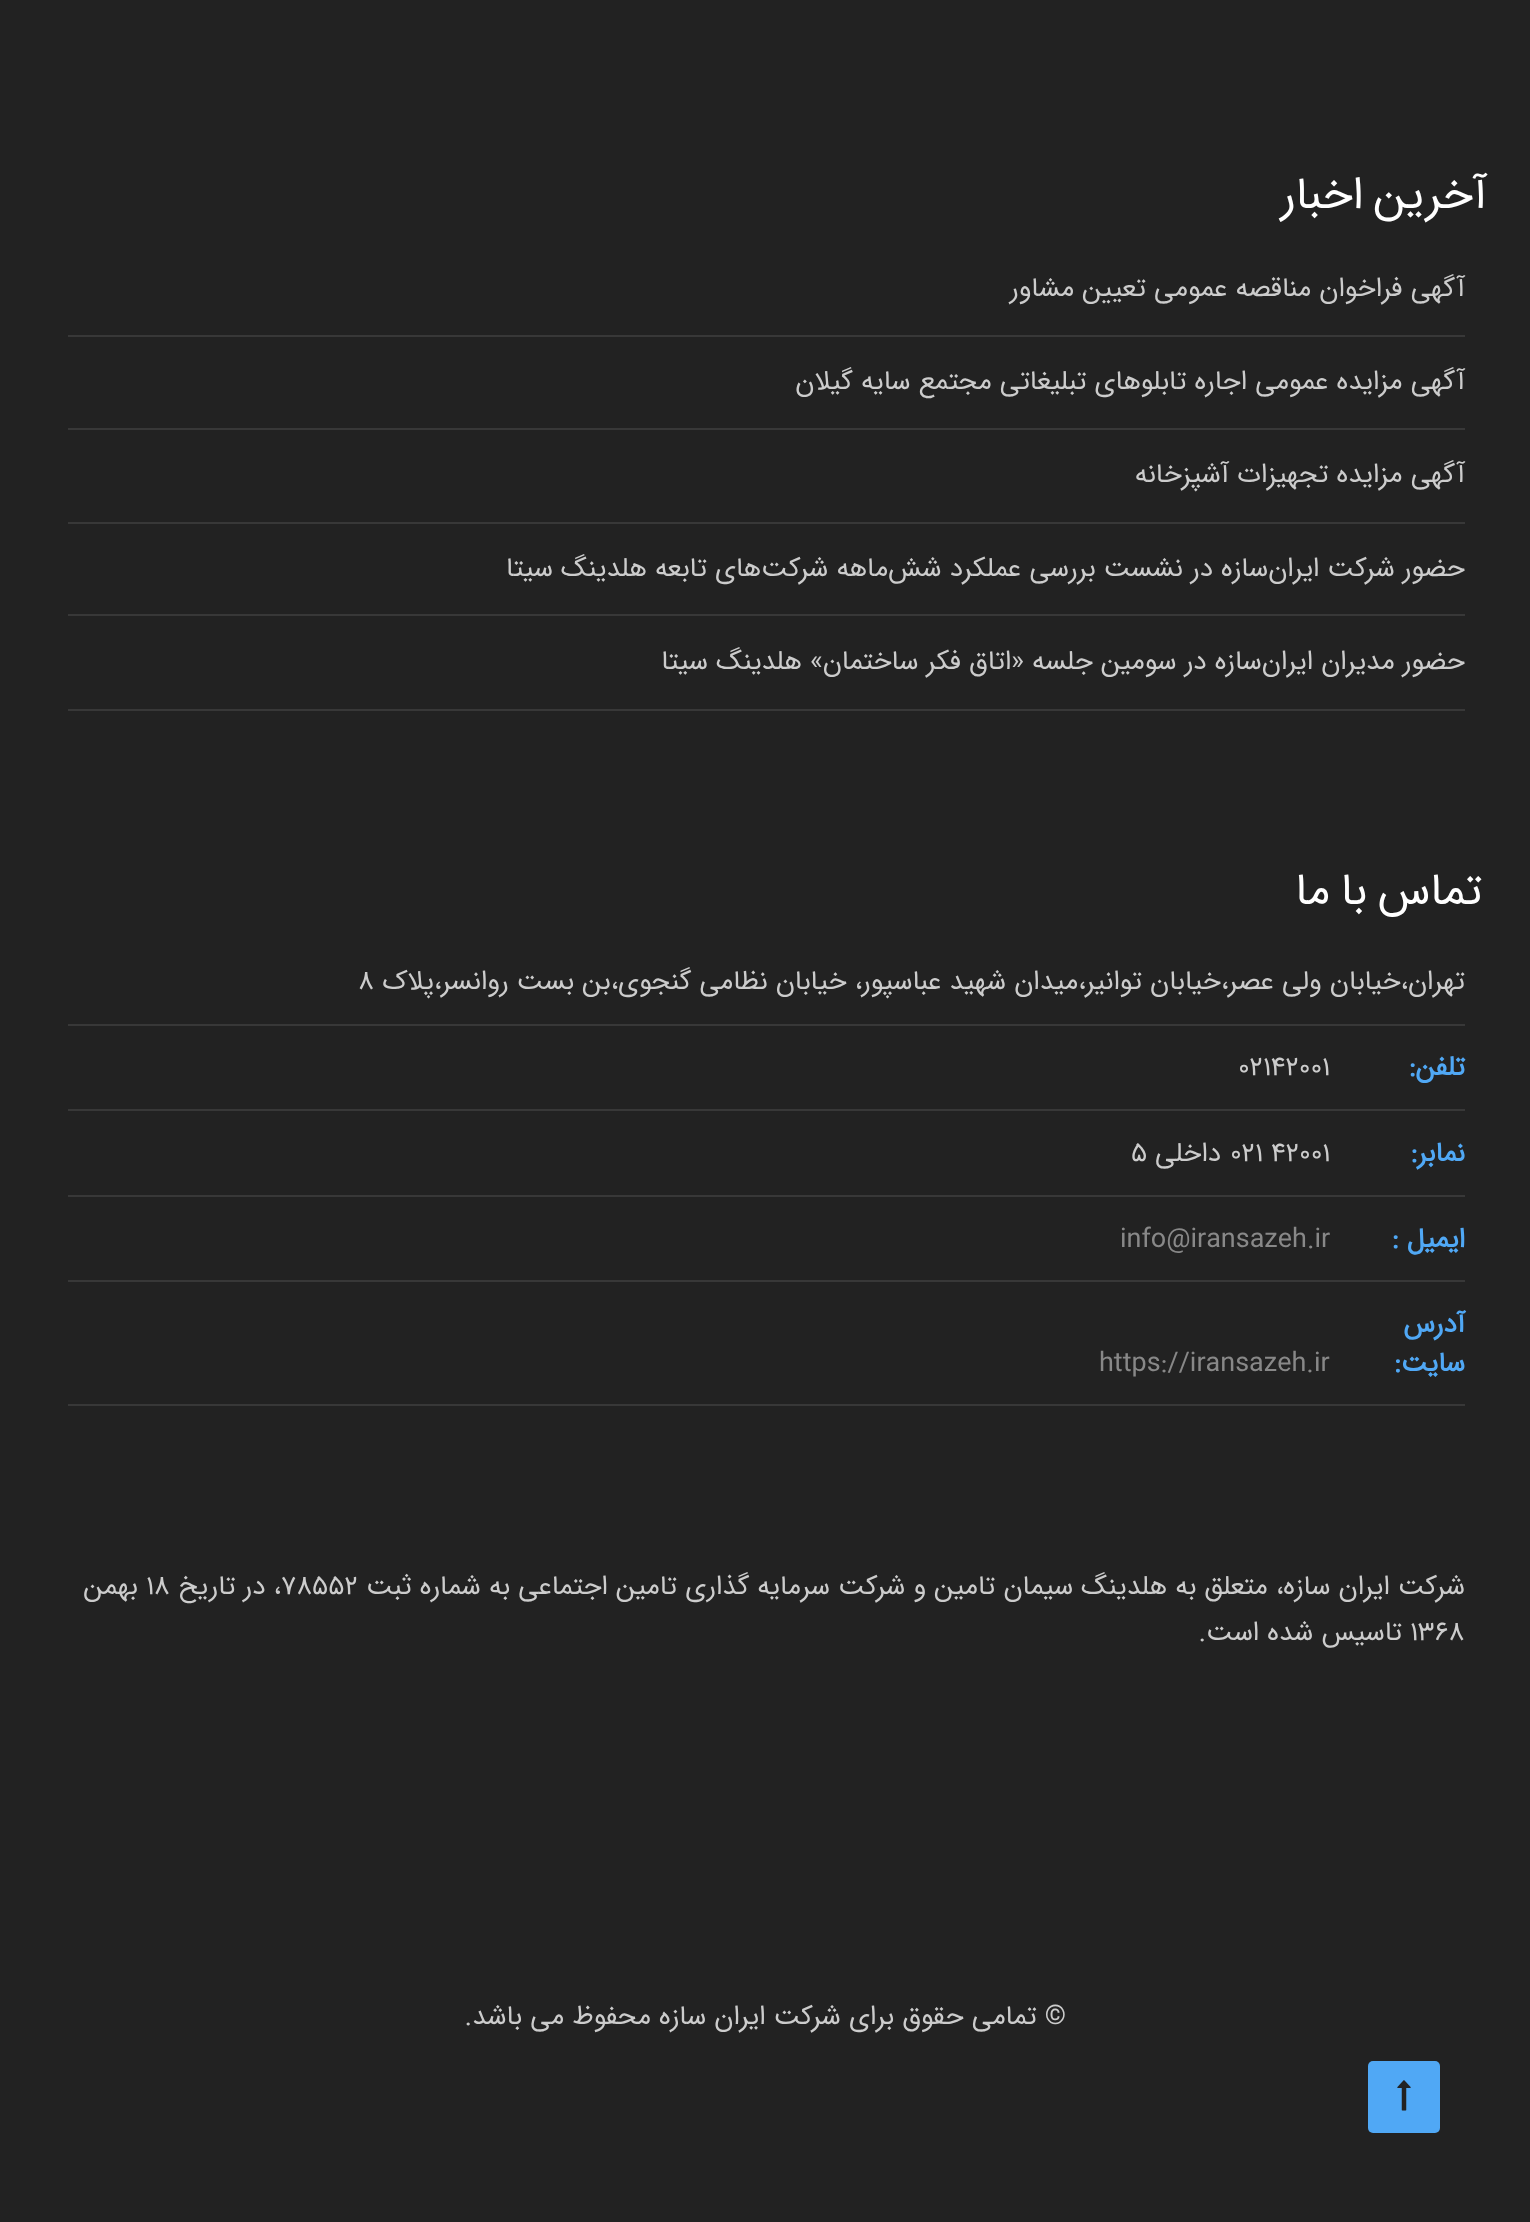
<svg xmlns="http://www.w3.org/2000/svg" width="1530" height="2222">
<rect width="100%" height="100%" fill="#222"/>
<text x="1487" y="208" word-spacing="-3" style="font-family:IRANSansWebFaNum;font-size:45px;letter-spacing:2.25px;direction:rtl;fill:#fff">آخرین اخبار</text>
<rect x="68" y="335" width="1397" height="2" fill="#383838"/>
<text x="1465" y="296" style="font-family:IRANSansWebFaNum;font-size:27px;direction:rtl;fill:#ccc">آگهی فراخوان مناقصه عمومی تعیین مشاور</text>
<rect x="68" y="428" width="1397" height="2" fill="#383838"/>
<text x="1465" y="389" style="font-family:IRANSansWebFaNum;font-size:27px;direction:rtl;fill:#ccc">آگهی مزایده عمومی اجاره تابلوهای تبلیغاتی مجتمع سایه گیلان</text>
<rect x="68" y="522" width="1397" height="2" fill="#383838"/>
<text x="1465" y="482" style="font-family:IRANSansWebFaNum;font-size:27px;direction:rtl;fill:#ccc">آگهی مزایده تجهیزات آشپزخانه</text>
<rect x="68" y="614" width="1397" height="2" fill="#383838"/>
<text x="1465" y="576" style="font-family:IRANSansWebFaNum;font-size:27px;direction:rtl;fill:#ccc">حضور شرکت ایران‌سازه در نشست بررسی عملکرد شش‌ماهه شرکت‌های تابعه هلدینگ سیتا</text>
<rect x="68" y="709" width="1397" height="2" fill="#383838"/>
<text x="1465" y="669" style="font-family:IRANSansWebFaNum;font-size:27px;direction:rtl;fill:#ccc">حضور مدیران ایران‌سازه در سومین جلسه «اتاق فکر ساختمان» هلدینگ سیتا</text>
<text x="1482" y="904" word-spacing="-3" style="font-family:IRANSansWebFaNum;font-size:45px;letter-spacing:2.25px;direction:rtl;fill:#fff">تماس با ما</text>
<rect x="68" y="1024" width="1397" height="2" fill="#383838"/>
<text x="1465" y="989" style="font-family:IRANSansWebFaNum;font-size:27px;direction:rtl;fill:#ccc">تهران،خیابان ولی عصر،خیابان توانیر،میدان شهید عباسپور، خیابان نظامی گنجوی،بن بست روانسر،پلاک</text>
<text x="358" y="989" style="font-family:IRANSansWebFaNum;font-size:27px;fill:#ccc">8</text>
<rect x="68" y="1109" width="1397" height="2" fill="#383838"/>
<text x="1465" y="1075" style="font-family:IRANSansWebFaNum;font-size:27px;font-weight:bold;direction:rtl;fill:#50a8f5">تلفن:</text>
<text x="1238" y="1075" style="font-family:IRANSansWebFaNum;font-size:27px;fill:#ccc">02142001</text>
<rect x="68" y="1195" width="1397" height="2" fill="#383838"/>
<text x="1465" y="1161" style="font-family:IRANSansWebFaNum;font-size:27px;font-weight:bold;direction:rtl;fill:#50a8f5">نمابر:</text>
<text x="1230" y="1161" style="font-family:IRANSansWebFaNum;font-size:27px;fill:#ccc">021 42001</text>
<text x="1221" y="1161" style="font-family:IRANSansWebFaNum;font-size:27px;direction:rtl;fill:#ccc">داخلی</text>
<text x="1131" y="1161" style="font-family:IRANSansWebFaNum;font-size:27px;fill:#ccc">5</text>
<rect x="68" y="1280" width="1397" height="2" fill="#383838"/>
<text x="1465" y="1247" style="font-family:IRANSansWebFaNum;font-size:27px;font-weight:bold;direction:rtl;fill:#50a8f5">ایمیل :</text>
<text x="1120" y="1247" style="font-family:IRANSansWebFaNum;font-size:27px;fill:#888">info@iransazeh.ir</text>
<rect x="68" y="1404" width="1397" height="2" fill="#383838"/>
<text x="1465" y="1332" style="font-family:IRANSansWebFaNum;font-size:27px;font-weight:bold;direction:rtl;fill:#50a8f5">آدرس</text>
<text x="1465" y="1371" style="font-family:IRANSansWebFaNum;font-size:27px;font-weight:bold;direction:rtl;fill:#50a8f5">سایت:</text>
<text x="1099" y="1371" style="font-family:IRANSansWebFaNum;font-size:27px;fill:#888">https://iransazeh.ir</text>
<text x="1465" y="1594" style="font-family:IRANSansWebFaNum;font-size:27px;direction:rtl;fill:#ccc">شرکت ایران سازه، متعلق به هلدینگ سیمان تامین و شرکت سرمایه گذاری تامین اجتماعی به شماره ثبت</text>
<text x="281" y="1594" style="font-family:IRANSansWebFaNum;font-size:27px;fill:#ccc">78552</text>
<text x="281" y="1594" style="font-family:IRANSansWebFaNum;font-size:27px;direction:rtl;fill:#ccc">، در تاریخ</text>
<text x="146" y="1594" style="font-family:IRANSansWebFaNum;font-size:27px;fill:#ccc">18</text>
<text x="138" y="1594" style="font-family:IRANSansWebFaNum;font-size:27px;direction:rtl;fill:#ccc">بهمن</text>
<text x="1410" y="1640" style="font-family:IRANSansWebFaNum;font-size:27px;fill:#ccc">1368</text>
<text x="1402" y="1640" style="font-family:IRANSansWebFaNum;font-size:27px;direction:rtl;fill:#ccc">تاسیس شده است.</text>
<text x="1066" y="2024" style="font-family:IRANSansWebFaNum;font-size:27px;direction:rtl;fill:#ccc">© تمامی حقوق برای شرکت ایران سازه محفوظ می باشد.</text>
<rect x="1368" y="2061" width="72" height="72" rx="5" fill="#50a8f5"/>
<image x="1397" y="2080" width="14" height="31" href="media/1.png"/>
</svg>
